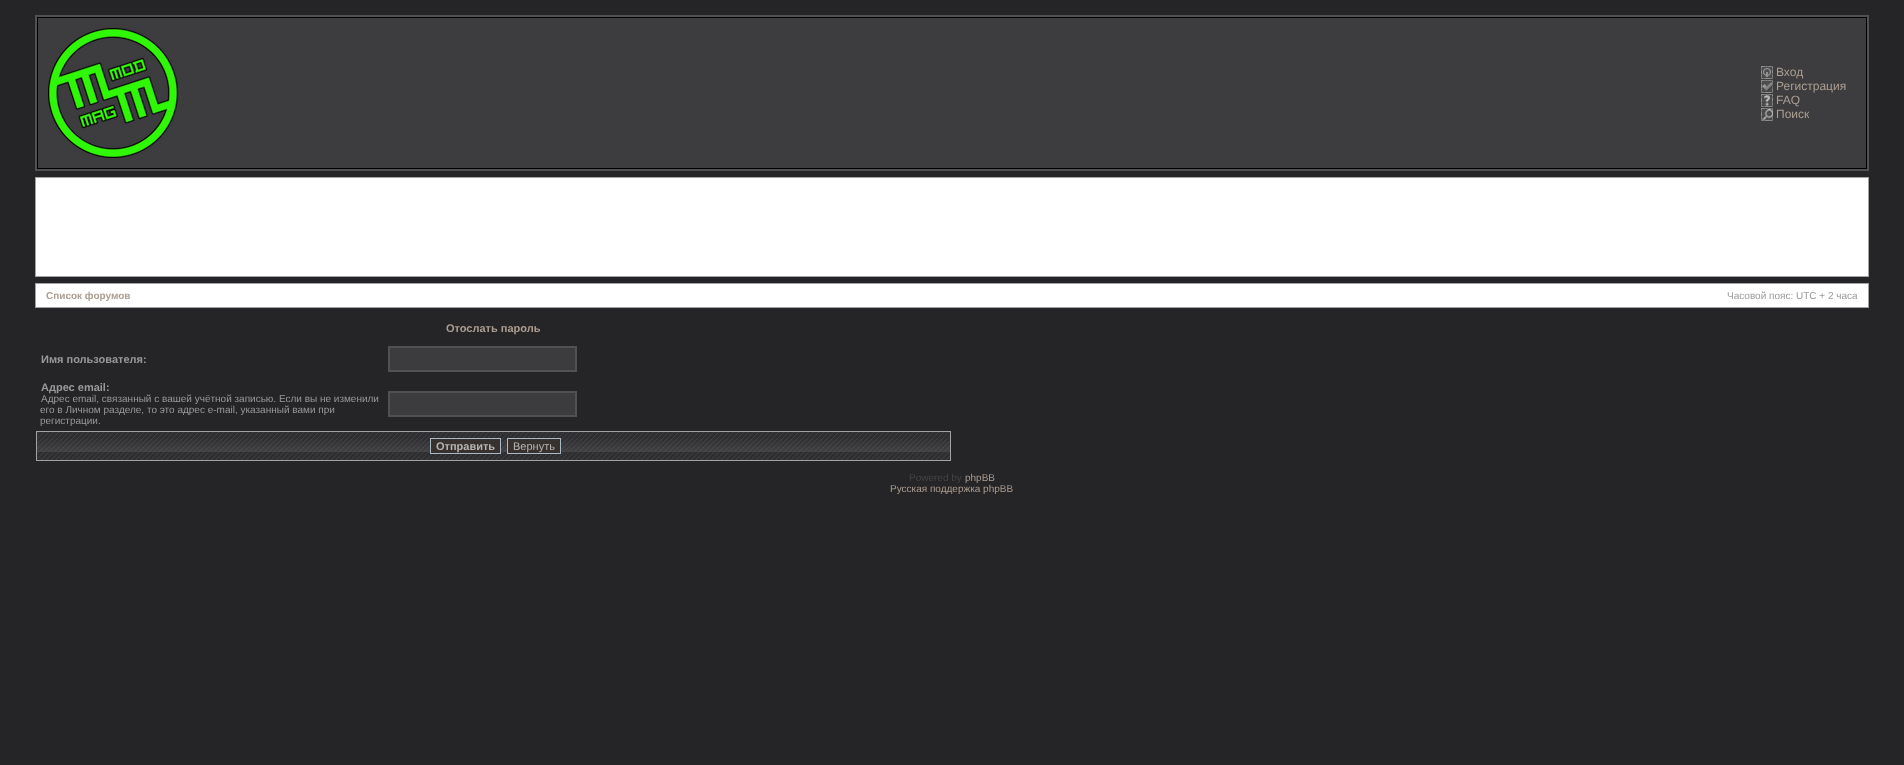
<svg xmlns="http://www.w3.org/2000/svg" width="1904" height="765">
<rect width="100%" height="100%" fill="#252427"/>
<rect x="36" y="16" width="1832" height="154" fill="none" stroke="#515053" stroke-width="2"/>
<rect x="37.5" y="17.5" width="1829" height="151" fill="none" stroke="#000"/>
<rect x="38" y="18" width="1828" height="150" fill="#3d3d3f"/>
<image x="48" y="28" width="130" height="130" href="media/1.png"/>
<image x="1761" y="66" width="12" height="13" href="media/2.png"/>
<text x="1776" y="76" style="font-family:Liberation Sans;font-size:12px;fill:#ac9e91">Вход</text>
<image x="1761" y="80" width="12" height="13" href="media/3.png"/>
<text x="1776" y="90" style="font-family:Liberation Sans;font-size:12px;fill:#ac9e91">Регистрация</text>
<image x="1761" y="94" width="12" height="13" href="media/4.png"/>
<text x="1776" y="104" style="font-family:Liberation Sans;font-size:12px;fill:#ac9e91">FAQ</text>
<image x="1761" y="108" width="12" height="13" href="media/5.png"/>
<text x="1776" y="118" style="font-family:Liberation Sans;font-size:12px;fill:#ac9e91">Поиск</text>
<rect x="35.5" y="177.5" width="1833" height="99" fill="#fff" stroke="#a2a2a2"/>
<rect x="35.5" y="283.5" width="1833" height="24" fill="#fff" stroke="#a2a2a2"/>
<text x="46" y="299" style="font-family:Liberation Sans;font-size:10px;font-weight:bold;fill:#ac9e91">Список форумов</text>
<text x="1727" y="299" style="font-family:Liberation Sans;font-size:10px;fill:#999">Часовой пояс: UTC + 2 часа</text>
<text x="446" y="332" style="font-family:Liberation Sans;font-size:11px;font-weight:bold;fill:#ac9e91">Отослать пароль</text>
<text x="41" y="363" style="font-family:Liberation Sans;font-size:11px;font-weight:bold;fill:#999">Имя пользователя:</text>
<rect x="389" y="347" width="187" height="24" fill="#3c3c3e" stroke="#515053" stroke-width="2"/>
<text x="41" y="391" style="font-family:Liberation Sans;font-size:11px;font-weight:bold;fill:#999">Адрес email:</text>
<text x="41" y="402" style="font-family:Liberation Sans;font-size:10px;fill:#999">Адрес email, связанный с вашей учётной записью. Если вы не изменили</text>
<text x="40" y="413" style="font-family:Liberation Sans;font-size:10px;fill:#999">его в Личном разделе, то это адрес e-mail, указанный вами при</text>
<text x="40" y="424" style="font-family:Liberation Sans;font-size:10px;fill:#999">регистрации.</text>
<rect x="389" y="392" width="187" height="24" fill="#3c3c3e" stroke="#515053" stroke-width="2"/>
<image x="37" y="432" width="913" height="28" href="media/6.png"/>
<rect x="36.5" y="431.5" width="914" height="29" fill="none" stroke="#a2a2a2"/>
<rect x="430.5" y="438.5" width="70" height="15" fill="#37322f" stroke="#a9b8c2"/>
<text x="436" y="450" style="font-family:Liberation Sans;font-size:11px;font-weight:bold;fill:#b6b5b1">Отправить</text>
<rect x="507.5" y="438.5" width="53" height="15" fill="#37322f" stroke="#a9b8c2"/>
<text x="513" y="450" style="font-family:Liberation Sans;font-size:11px;fill:#b6b5b1">Вернуть</text>
<text x="909" y="481" style="font-family:Liberation Sans;font-size:10px;fill:#444">Powered by</text>
<text x="965" y="481" style="font-family:Liberation Sans;font-size:10px;fill:#ac9e91">phpBB</text>
<text x="890" y="492" style="font-family:Liberation Sans;font-size:10px;fill:#ac9e91">Русская поддержка phpBB</text>
</svg>
